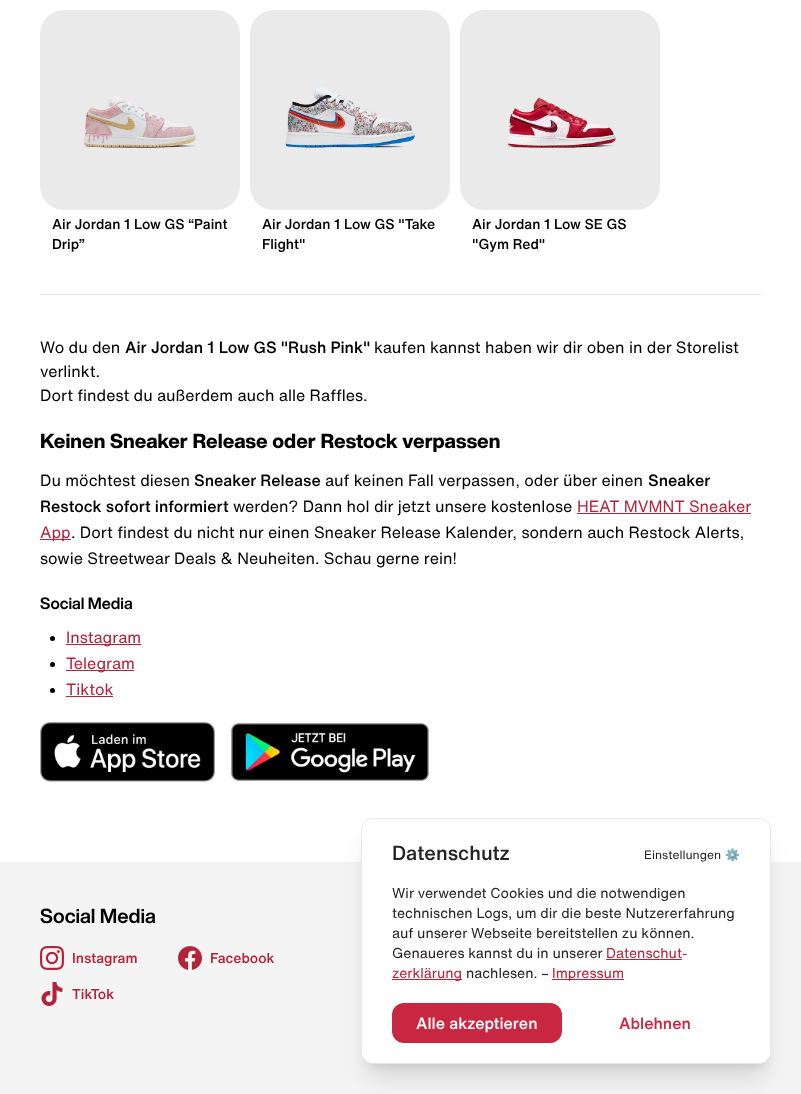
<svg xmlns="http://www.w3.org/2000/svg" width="801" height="1094">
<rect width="100%" height="100%" fill="#fff"/>
<rect x="40" y="10" width="200" height="200" rx="24" fill="#eaeaea"/>
<image x="83" y="96" width="113" height="52" href="media/1.png"/>
<text x="52" y="229" style="font-family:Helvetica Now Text;font-size:14px;font-weight:500;fill:#000">Air Jordan 1 Low GS “Paint</text>
<text x="52" y="249" style="font-family:Helvetica Now Text;font-size:14px;font-weight:500;fill:#000">Drip”</text>
<rect x="250" y="10" width="200" height="200" rx="24" fill="#eaeaea"/>
<image x="285" y="85" width="131" height="64" href="media/2.png"/>
<text x="262" y="229" style="font-family:Helvetica Now Text;font-size:14px;font-weight:500;fill:#000">Air Jordan 1 Low GS "Take</text>
<text x="262" y="249" style="font-family:Helvetica Now Text;font-size:14px;font-weight:500;fill:#000">Flight"</text>
<rect x="460" y="10" width="200" height="200" rx="24" fill="#eaeaea"/>
<image x="507" y="95" width="109" height="53" href="media/3.png"/>
<text x="472" y="229" style="font-family:Helvetica Now Text;font-size:14px;font-weight:500;fill:#000">Air Jordan 1 Low SE GS</text>
<text x="472" y="249" style="font-family:Helvetica Now Text;font-size:14px;font-weight:500;fill:#000">"Gym Red"</text>
<rect x="40" y="294" width="721" height="1" fill="#e5e7eb"/>
<text x="40" y="353" style="font-family:Helvetica Now Text;font-size:16px;fill:#000">Wo du den</text>
<text x="125" y="353" style="font-family:Helvetica Now Text;font-size:16px;font-weight:500;fill:#000">Air Jordan 1 Low GS "Rush Pink"</text>
<text x="374" y="353" style="font-family:Helvetica Now Text;font-size:16px;fill:#000">kaufen kannst haben wir dir oben in der Storelist</text>
<text x="40" y="377" style="font-family:Helvetica Now Text;font-size:16px;fill:#000">verlinkt.</text>
<text x="40" y="401" style="font-family:Helvetica Now Text;font-size:16px;fill:#000">Dort findest du außerdem auch alle Raffles.</text>
<text x="40" y="448" style="font-family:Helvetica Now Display;font-size:20px;font-weight:800;fill:#000">Keinen Sneaker Release oder Restock verpassen</text>
<text x="40" y="486" style="font-family:Helvetica Now Text;font-size:16px;fill:#000">Du möchtest diesen</text>
<text x="194" y="486" style="font-family:Helvetica Now Text;font-size:16px;font-weight:500;fill:#000">Sneaker Release</text>
<text x="325" y="486" style="font-family:Helvetica Now Text;font-size:16px;fill:#000">auf keinen Fall verpassen, oder über einen</text>
<text x="648" y="486" style="font-family:Helvetica Now Text;font-size:16px;font-weight:500;fill:#000">Sneaker</text>
<text x="40" y="512" style="font-family:Helvetica Now Text;font-size:16px;font-weight:500;fill:#000">Restock sofort informiert</text>
<text x="233" y="512" style="font-family:Helvetica Now Text;font-size:16px;fill:#000">werden? Dann hol dir jetzt unsere kostenlose</text>
<text x="577" y="512" style="font-family:Helvetica Now Text;font-size:16px;fill:#b3233a">HEAT MVMNT Sneaker</text>
<rect x="577" y="513" width="174" height="1" fill="#b3233a"/>
<rect x="40" y="539" width="31" height="1" fill="#b3233a"/>
<text x="40" y="538" style="font-family:Helvetica Now Text;font-size:16px;fill:#b3233a">App</text>
<text x="71" y="538" style="font-family:Helvetica Now Text;font-size:16px;fill:#000">. Dort findest du nicht nur einen Sneaker Release Kalender, sondern auch Restock Alerts,</text>
<text x="40" y="564" style="font-family:Helvetica Now Text;font-size:16px;fill:#000">sowie Streetwear Deals &amp; Neuheiten. Schau gerne rein!</text>
<text x="40" y="609" style="font-family:Helvetica Now Display;font-size:16px;font-weight:bold;fill:#000">Social Media</text>
<circle cx="52.5" cy="638.5" r="2.5" fill="#000"/>
<rect x="66" y="644" width="75" height="1" fill="#b3233a"/>
<text x="66" y="643" style="font-family:Helvetica Now Text;font-size:16px;fill:#b3233a">Instagram</text>
<circle cx="52.5" cy="664.5" r="2.5" fill="#000"/>
<rect x="66" y="670" width="68" height="1" fill="#b3233a"/>
<text x="66" y="669" style="font-family:Helvetica Now Text;font-size:16px;fill:#b3233a">Telegram</text>
<circle cx="52.5" cy="690.5" r="2.5" fill="#000"/>
<text x="66" y="695" style="font-family:Helvetica Now Text;font-size:16px;fill:#b3233a">Tiktok</text>
<rect x="66" y="696" width="47" height="1" fill="#b3233a"/>
<image x="40" y="722" width="175" height="60" href="media/4.png"/>
<image x="231" y="723" width="198" height="58" href="media/5.png"/>
<rect y="862" width="801" height="232" fill="#f4f4f5"/>
<text x="40" y="923" style="font-family:Helvetica Now Display;font-size:20px;font-weight:bold;fill:#000">Social Media</text>
<image x="40" y="946" width="24" height="24" href="media/6.png"/>
<text x="72" y="963" style="font-family:Helvetica Now Text;font-size:14px;font-weight:500;fill:#b3233a">Instagram</text>
<image x="41" y="982" width="22" height="24" href="media/7.png"/>
<text x="72" y="999" style="font-family:Helvetica Now Text;font-size:14px;font-weight:500;fill:#b3233a">TikTok</text>
<image x="178" y="946" width="24" height="24" href="media/8.png"/>
<text x="210" y="963" style="font-family:Helvetica Now Text;font-size:14px;font-weight:500;fill:#b3233a">Facebook</text>
<rect x="367" y="832" width="398" height="234" rx="6" fill="#0000001a" filter="blur(5px)"/>
<rect x="366" y="843" width="400" height="236" rx="7" fill="#0000001a" filter="blur(12.5px)"/>
<rect x="361.5" y="818.5" width="409" height="245" rx="11.5" fill="#fff" stroke="#e5e7e9"/>
<text x="392" y="860" style="font-family:Helvetica Now Text;font-size:20px;font-weight:500;fill:#272324">Datenschutz</text>
<text x="644" y="859" style="font-family:Helvetica Now Text;font-size:12px;fill:#272324">Einstellungen</text>
<text x="725" y="859" style="font-family:Noto Color Emoji;font-size:12px;fill:#272324">⚙️</text>
<text x="392" y="898" style="font-family:Helvetica Now Text;font-size:14px;fill:#272324">Wir verwendet Cookies und die notwendigen</text>
<text x="392" y="918" style="font-family:Helvetica Now Text;font-size:14px;fill:#272324">technischen Logs, um dir die beste Nutzererfahrung</text>
<text x="392" y="938" style="font-family:Helvetica Now Text;font-size:14px;fill:#272324">auf unserer Webseite bereitstellen zu können.</text>
<text x="392" y="958" style="font-family:Helvetica Now Text;font-size:14px;fill:#272324">Genaueres kannst du in unserer</text>
<text x="606" y="958" style="font-family:Helvetica Now Text;font-size:14px;fill:#b3233a">Datenschut-</text>
<rect x="606" y="959" width="76" height="1" fill="#b3233a"/>
<rect x="392" y="979" width="70" height="1" fill="#b3233a"/>
<text x="392" y="978" style="font-family:Helvetica Now Text;font-size:14px;fill:#b3233a">zerklärung</text>
<text x="466" y="978" style="font-family:Helvetica Now Text;font-size:14px;fill:#272324">nachlesen. –</text>
<rect x="552" y="979" width="72" height="1" fill="#b3233a"/>
<text x="552" y="978" style="font-family:Helvetica Now Text;font-size:14px;fill:#b3233a">Impressum</text>
<rect x="392" y="1003" width="170" height="40" rx="12" fill="#c72740"/>
<text x="416" y="1029" style="font-family:Helvetica Now Text;font-size:16px;font-weight:500;fill:#fff">Alle akzeptieren</text>
<text x="619" y="1029" style="font-family:Helvetica Now Text;font-size:16px;font-weight:500;fill:#c72740">Ablehnen</text>
</svg>
